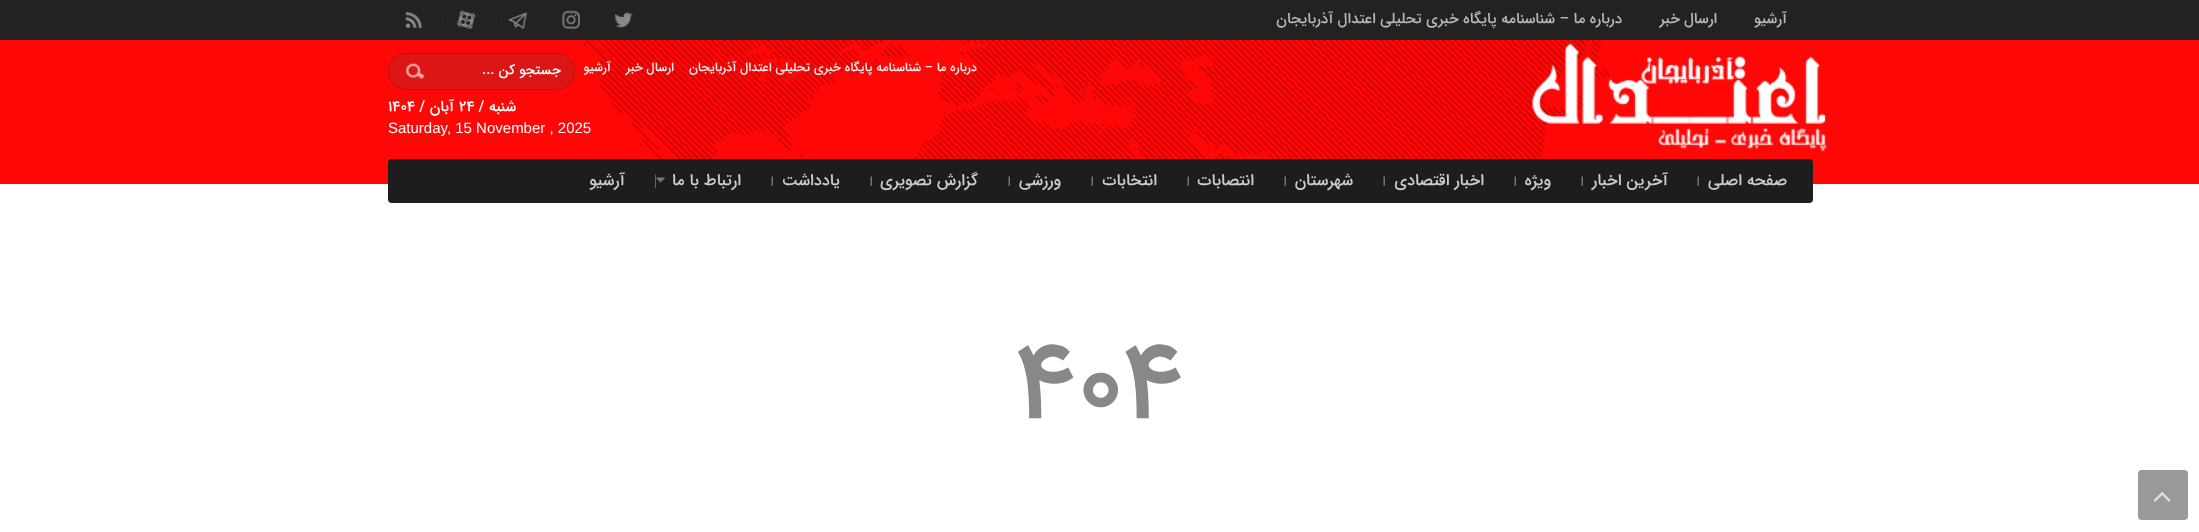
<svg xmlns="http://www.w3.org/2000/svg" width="2199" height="532">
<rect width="100%" height="100%" fill="#fff"/>
<rect width="2199" height="40" fill="#222"/>
<text x="1787" y="23" style="font-family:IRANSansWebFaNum;font-size:15px;font-weight:500;direction:rtl;fill:#b7b7b7">آرشیو</text>
<text x="1717" y="23" style="font-family:IRANSansWebFaNum;font-size:15px;font-weight:500;direction:rtl;fill:#b7b7b7">ارسال</text>
<text x="1680" y="23" style="font-family:IRANSansWebFaNum;font-size:15px;font-weight:500;direction:rtl;fill:#b7b7b7">خبر</text>
<text x="1622" y="23" style="font-family:IRANSansWebFaNum;font-size:15px;font-weight:500;direction:rtl;fill:#b7b7b7">درباره ما – شناسنامه پایگاه خبری تحلیلی اعتدال آذربایجان</text>
<image x="615" y="12" width="18" height="16" href="media/1.png"/>
<rect x="603" y="13" width="1" height="16" fill="#1f1f1f"/>
<image x="561" y="10" width="19" height="19" href="media/2.png"/>
<rect x="550" y="13" width="1" height="16" fill="#1f1f1f"/>
<image x="508" y="12" width="20" height="17" href="media/3.png"/>
<rect x="498" y="13" width="1" height="16" fill="#1f1f1f"/>
<image x="456" y="10" width="19" height="19" href="media/4.png"/>
<rect x="445" y="13" width="1" height="16" fill="#1f1f1f"/>
<image x="405" y="11" width="18" height="18" href="media/5.png"/>
<rect y="40" width="2199" height="144" fill="#ff0707"/>
<image x="582" y="40" width="1028" height="119" href="media/6.png"/>
<image x="1532" y="43" width="295" height="109" href="media/7.png"/>
<text x="977" y="71" style="font-family:IRANSansWebFaNum;font-size:12.5px;font-weight:500;direction:rtl;fill:#eee">درباره ما – شناسنامه پایگاه خبری تحلیلی اعتدال آذربایجان</text>
<text x="674" y="71" style="font-family:IRANSansWebFaNum;font-size:12.5px;font-weight:500;direction:rtl;fill:#eee">ارسال</text>
<text x="643" y="71" style="font-family:IRANSansWebFaNum;font-size:12.5px;font-weight:500;direction:rtl;fill:#eee">خبر</text>
<text x="611" y="71" style="font-family:IRANSansWebFaNum;font-size:12.5px;font-weight:500;direction:rtl;fill:#eee">آرشیو</text>
<rect x="388" y="53" width="187" height="37" rx="18.5" fill="#dc1515"/>
<image x="406" y="63" width="19" height="16" href="media/8.png"/>
<rect x="388.5" y="53.5" width="186" height="36" rx="18" fill="none" stroke="#241b1b33"/>
<text x="561" y="74" style="font-family:IRANSansWebFaNum;font-size:13.75px;font-weight:500;direction:rtl;fill:#fff">جستجو کن ...</text>
<text x="516" y="111" style="font-family:IRANSansWebFaNum;font-size:15px;font-weight:500;direction:rtl;fill:#fff">شنبه /</text>
<text x="459" y="111" style="font-family:IRANSansWebFaNum;font-size:15px;font-weight:500;fill:#fff">۲۴</text>
<text x="454" y="111" style="font-family:IRANSansWebFaNum;font-size:15px;font-weight:500;direction:rtl;fill:#fff">آبان /</text>
<text x="388" y="111" style="font-family:IRANSansWebFaNum;font-size:15px;font-weight:500;fill:#fff">۱۴۰۴</text>
<text x="388" y="133" style="font-family:Liberation Sans;font-size:15px;fill:#fff">Saturday, 15 November , 2025</text>
<rect x="388" y="159" width="1425" height="44" rx="4" fill="#1d1d1d"/>
<text x="1787" y="185" style="font-family:IRANSansWebFaNum;font-size:16.25px;font-weight:500;direction:rtl;fill:#ccc">صفحه اصلی</text>
<text x="1695" y="185" style="font-family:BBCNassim;font-size:15px;font-weight:bold;fill:#777">|</text>
<text x="1668" y="185" style="font-family:IRANSansWebFaNum;font-size:16.25px;font-weight:500;direction:rtl;fill:#ccc">آخرین اخبار</text>
<text x="1579" y="185" style="font-family:BBCNassim;font-size:15px;font-weight:bold;fill:#777">|</text>
<text x="1551" y="185" style="font-family:IRANSansWebFaNum;font-size:16.25px;font-weight:500;direction:rtl;fill:#ccc">ویژه</text>
<text x="1512" y="185" style="font-family:BBCNassim;font-size:15px;font-weight:bold;fill:#777">|</text>
<text x="1484" y="185" style="font-family:IRANSansWebFaNum;font-size:16.25px;font-weight:500;direction:rtl;fill:#ccc">اخبار اقتصادی</text>
<text x="1381" y="185" style="font-family:BBCNassim;font-size:15px;font-weight:bold;fill:#777">|</text>
<text x="1353" y="185" style="font-family:IRANSansWebFaNum;font-size:16.25px;font-weight:500;direction:rtl;fill:#ccc">شهرستان</text>
<text x="1282" y="185" style="font-family:BBCNassim;font-size:15px;font-weight:bold;fill:#777">|</text>
<text x="1254" y="185" style="font-family:IRANSansWebFaNum;font-size:16.25px;font-weight:500;direction:rtl;fill:#ccc">انتصابات</text>
<text x="1185" y="185" style="font-family:BBCNassim;font-size:15px;font-weight:bold;fill:#777">|</text>
<text x="1157" y="185" style="font-family:IRANSansWebFaNum;font-size:16.25px;font-weight:500;direction:rtl;fill:#ccc">انتخابات</text>
<text x="1089" y="185" style="font-family:BBCNassim;font-size:15px;font-weight:bold;fill:#777">|</text>
<text x="1061" y="185" style="font-family:IRANSansWebFaNum;font-size:16.25px;font-weight:500;direction:rtl;fill:#ccc">ورزشی</text>
<text x="1006" y="185" style="font-family:BBCNassim;font-size:15px;font-weight:bold;fill:#777">|</text>
<text x="978" y="185" style="font-family:IRANSansWebFaNum;font-size:16.25px;font-weight:500;direction:rtl;fill:#ccc">گزارش تصویری</text>
<text x="868" y="185" style="font-family:BBCNassim;font-size:15px;font-weight:bold;fill:#777">|</text>
<text x="840" y="185" style="font-family:IRANSansWebFaNum;font-size:16.25px;font-weight:500;direction:rtl;fill:#ccc">یادداشت</text>
<text x="769" y="185" style="font-family:BBCNassim;font-size:15px;font-weight:bold;fill:#777">|</text>
<text x="741" y="185" style="font-family:IRANSansWebFaNum;font-size:16.25px;font-weight:500;direction:rtl;fill:#ccc">ارتباط با ما</text>
<image x="656" y="177" width="9" height="6" href="media/9.png"/>
<text x="654" y="185" style="font-family:Liberation Serif;font-size:15px;fill:#777">|</text>
<text x="625" y="185" style="font-family:IRANSansWebFaNum;font-size:16.25px;font-weight:500;direction:rtl;fill:#ccc">آرشیو</text>
<text x="1016" y="416" style="font-family:IRANSansWebFaNum;font-size:110px;font-weight:500;fill:#888">404</text>
<rect x="2138" y="470" width="50" height="50" rx="4" fill="#999"/>
<image x="2153" y="492" width="18" height="10" href="media/10.png"/>
</svg>
